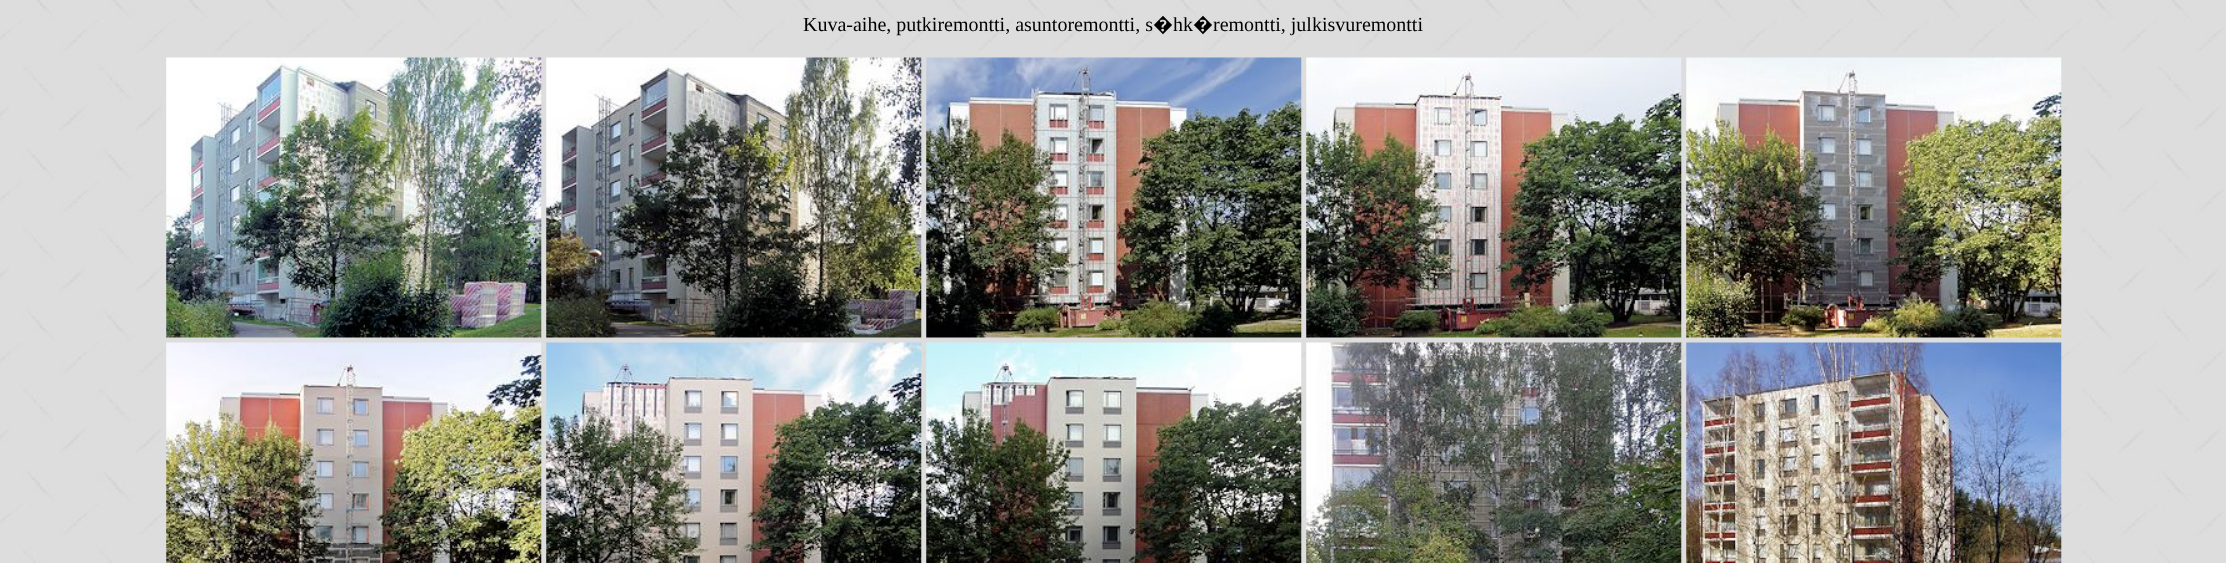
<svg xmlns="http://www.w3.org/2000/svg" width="2226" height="563">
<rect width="100%" height="100%" fill="#fff"/>
<image x="0" y="0" width="2226" height="563" href="media/1.png"/>
<text x="803" y="31" style="font-family:Liberation Serif;font-size:20px;fill:#000">Kuva-aihe, putkiremontti, asuntoremontti, s</text>
<text x="1153" y="31" style="font-family:Noto Sans;font-size:20px;fill:#000">�</text>
<text x="1173" y="31" style="font-family:Liberation Serif;font-size:20px;fill:#000">hk</text>
<text x="1193" y="31" style="font-family:Noto Sans;font-size:20px;fill:#000">�</text>
<text x="1213" y="31" style="font-family:Liberation Serif;font-size:20px;fill:#000">remontti, julkisvuremontti</text>
<image x="166" y="57" width="376" height="281" href="media/2.png"/>
<image x="546" y="57" width="376" height="281" href="media/3.png"/>
<image x="926" y="57" width="376" height="281" href="media/4.png"/>
<image x="1306" y="57" width="376" height="281" href="media/5.png"/>
<image x="1686" y="57" width="376" height="281" href="media/6.png"/>
<image x="166" y="342" width="376" height="221" href="media/7.png"/>
<image x="546" y="342" width="376" height="221" href="media/8.png"/>
<image x="926" y="342" width="376" height="221" href="media/9.png"/>
<image x="1306" y="342" width="376" height="221" href="media/10.png"/>
<image x="1686" y="342" width="376" height="221" href="media/11.png"/>
</svg>
